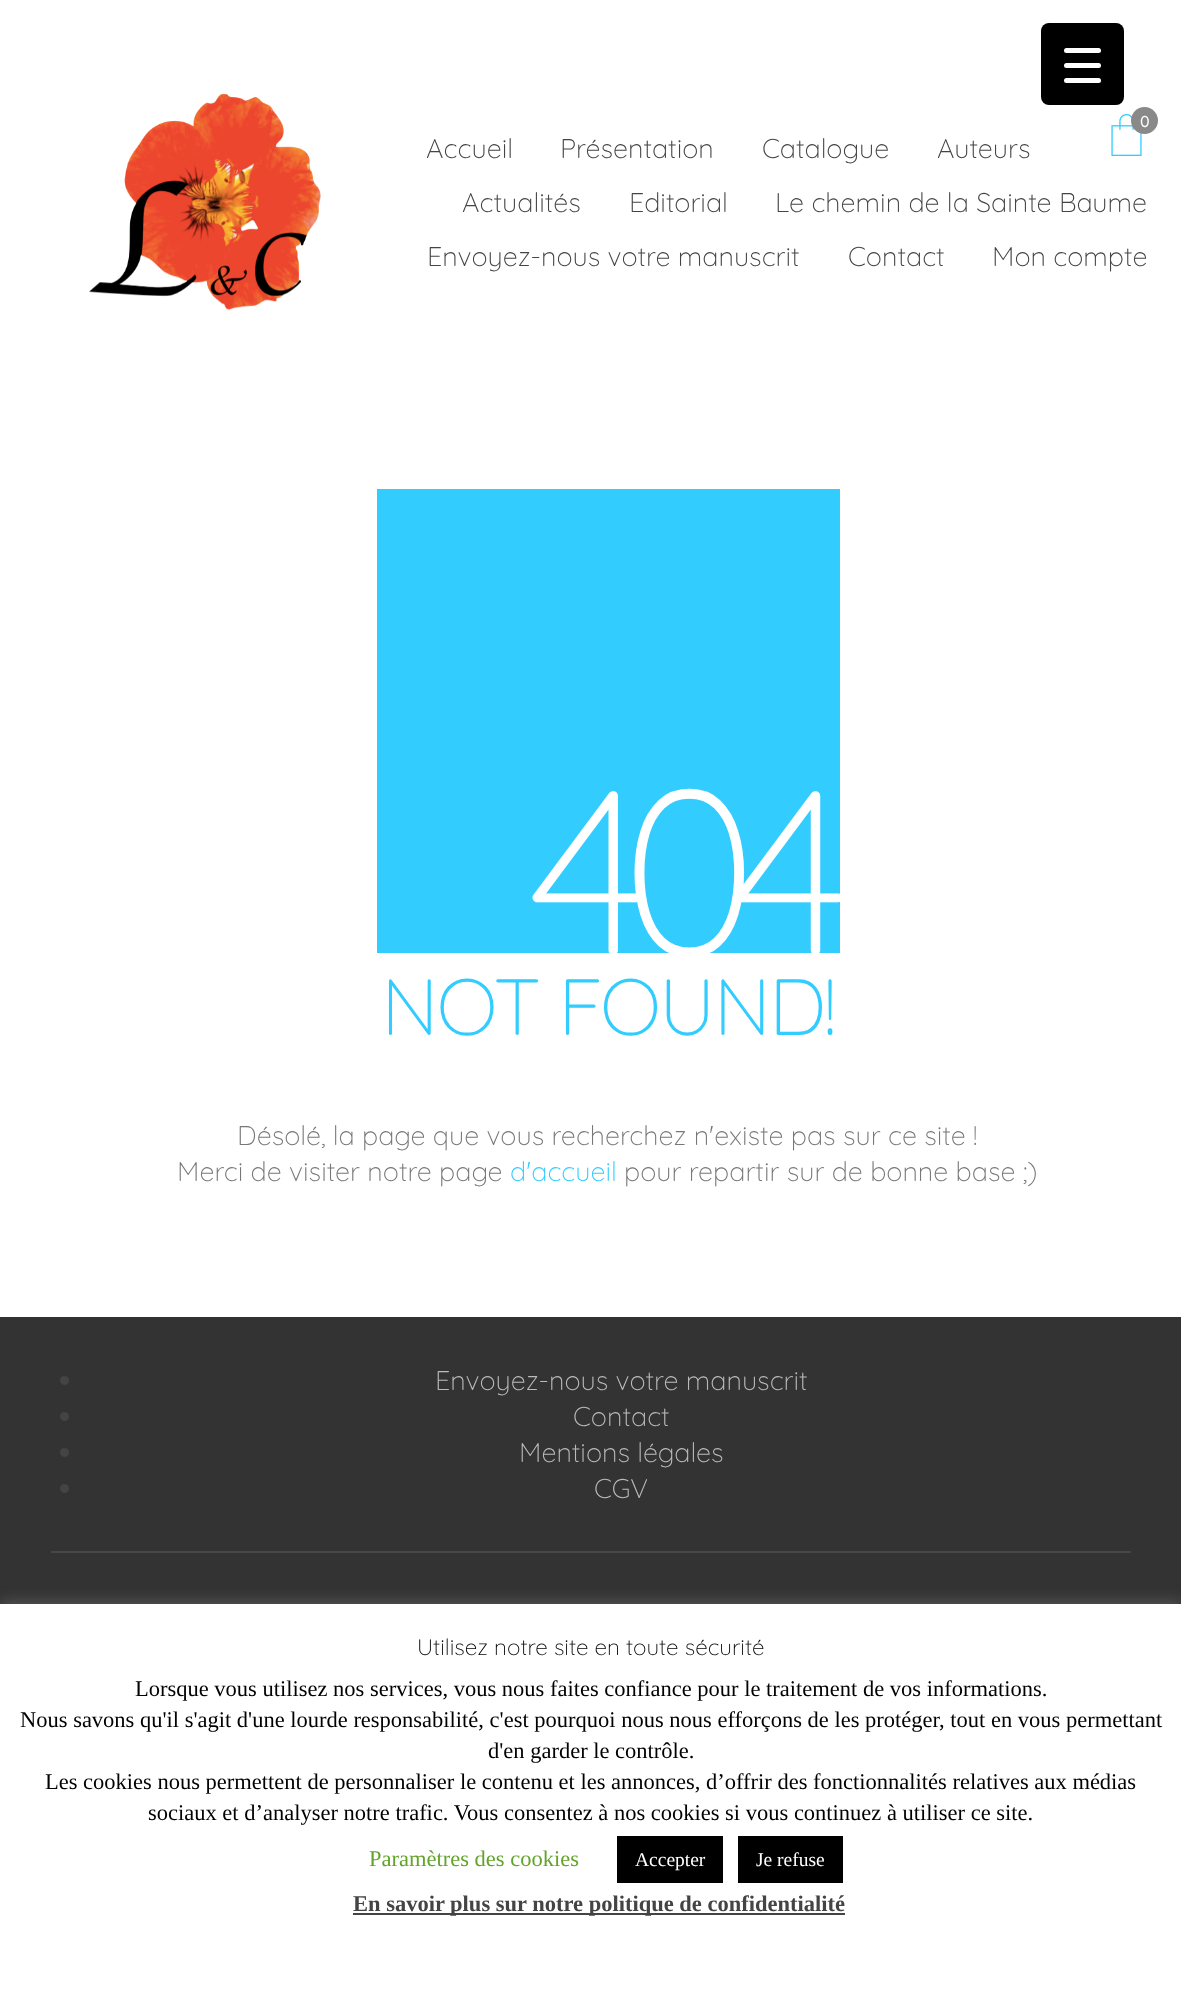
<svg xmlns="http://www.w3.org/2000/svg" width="1181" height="2013">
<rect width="100%" height="100%" fill="#fff"/>
<rect x="1041" y="23" width="83" height="82" rx="8" fill="#000"/>
<rect x="1064" y="63" width="37" height="5" rx="2.5" fill="#fff"/>
<rect x="1064" y="48" width="37" height="5" rx="2.5" fill="#fff"/>
<rect x="1064" y="78" width="37" height="5" rx="2.5" fill="#fff"/>
<image x="89" y="94" width="232" height="216" href="media/1.png"/>
<image x="1111" y="114" width="31" height="42" href="media/2.png"/>
<circle cx="1144.5" cy="120.5" r="13.5" fill="#898989"/>
<text x="1140" y="127" style="font-family:Quicksand;font-size:16px;font-weight:500;fill:#fff">0</text>
<text x="426" y="158" style="font-family:Quicksand;font-size:27px;font-weight:300;fill:#444">Accueil</text>
<text x="560" y="158" style="font-family:Quicksand;font-size:27px;font-weight:300;fill:#444">Présentation</text>
<text x="762" y="158" style="font-family:Quicksand;font-size:27px;font-weight:300;fill:#444">Catalogue</text>
<text x="937" y="158" style="font-family:Quicksand;font-size:27px;font-weight:300;fill:#444">Auteurs</text>
<text x="462" y="212" style="font-family:Quicksand;font-size:27px;font-weight:300;fill:#444">Actualités</text>
<text x="629" y="212" style="font-family:Quicksand;font-size:27px;font-weight:300;fill:#444">Editorial</text>
<text x="775" y="212" style="font-family:Quicksand;font-size:27px;font-weight:300;fill:#444">Le chemin de la Sainte Baume</text>
<text x="427" y="266" style="font-family:Quicksand;font-size:27px;font-weight:300;fill:#444">Envoyez-nous votre manuscrit</text>
<text x="848" y="266" style="font-family:Quicksand;font-size:27px;font-weight:300;fill:#444">Contact</text>
<text x="992" y="266" style="font-family:Quicksand;font-size:27px;font-weight:300;fill:#444">Mon compte</text>
<rect x="377" y="489" width="463" height="464" fill="#3cf"/>
<text x="529" y="955" style="font-family:Quicksand;font-size:234px;font-weight:300;letter-spacing:-45px;fill:#fff">4 0 4</text>
<text x="381" y="1035" style="font-family:Quicksand;font-size:79.5px;font-weight:300;letter-spacing:-2.25px;fill:#3cf">NOT FOUND!</text>
<text x="237" y="1145" style="font-family:Quicksand;font-size:27px;font-weight:300;fill:#777">Désolé, la page que vous recherchez n'existe pas sur ce site !</text>
<text x="177" y="1181" style="font-family:Quicksand;font-size:27px;font-weight:300;fill:#777">Merci de visiter notre page</text>
<text x="510" y="1181" style="font-family:Quicksand;font-size:27px;font-weight:300;fill:#3cf">d'accueil</text>
<text x="624" y="1181" style="font-family:Quicksand;font-size:27px;font-weight:300;fill:#777">pour repartir sur de bonne base ;)</text>
<rect y="1317" width="1181" height="287" fill="#333"/>
<circle cx="64.5" cy="1380.5" r="4.5" fill="#444"/>
<text x="435" y="1390" style="font-family:Quicksand;font-size:27px;font-weight:300;fill:#bbb">Envoyez-nous votre manuscrit</text>
<circle cx="64.5" cy="1416.5" r="4.5" fill="#444"/>
<text x="573" y="1426" style="font-family:Quicksand;font-size:27px;font-weight:300;fill:#bbb">Contact</text>
<circle cx="64.5" cy="1452.5" r="4.5" fill="#444"/>
<text x="519" y="1462" style="font-family:Quicksand;font-size:27px;font-weight:300;fill:#bbb">Mentions légales</text>
<circle cx="64.5" cy="1488.5" r="4.5" fill="#444"/>
<text x="594" y="1498" style="font-family:Quicksand;font-size:27px;font-weight:300;fill:#bbb">CGV</text>
<rect x="51" y="1551" width="1080" height="2" fill="#474747"/>
<rect y="1602" width="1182" height="410" fill="#acabab4d" filter="blur(7.5px)"/>
<rect y="1604" width="1181" height="409" fill="#fff"/>
<text x="417" y="1655" style="font-family:Quicksand;font-size:22.5px;font-weight:300;fill:#000">Utilisez notre site en toute sécurité</text>
<text x="135" y="1696" style="font-family:Liberation Serif;font-size:22.5px;fill:#000">Lorsque vous utilisez nos services, vous nous faites confiance pour le traitement de vos informations.</text>
<text x="20" y="1727" style="font-family:Liberation Serif;font-size:22.5px;fill:#000">Nous savons qu'il s'agit d'une lourde responsabilité, c'est pourquoi nous nous efforçons de les protéger, tout en vous permettant</text>
<text x="488" y="1758" style="font-family:Liberation Serif;font-size:22.5px;fill:#000">d'en garder le contrôle.</text>
<text x="45" y="1789" style="font-family:Liberation Serif;font-size:22.5px;fill:#000">Les cookies nous permettent de personnaliser le contenu et les annonces, d’offrir des fonctionnalités relatives aux médias</text>
<text x="148" y="1820" style="font-family:Liberation Serif;font-size:22.5px;fill:#000">sociaux et d’analyser notre trafic. Vous consentez à nos cookies si vous continuez à utiliser ce site.</text>
<text x="369" y="1866" style="font-family:Liberation Serif;font-size:22.5px;fill:#62a329">Paramètres des cookies</text>
<rect x="617" y="1836" width="106" height="47" fill="#000"/>
<text x="635" y="1866" style="font-family:Liberation Serif;font-size:19.5px;fill:#fff">Accepter</text>
<rect x="738" y="1836" width="105" height="47" fill="#000"/>
<text x="756" y="1866" style="font-family:Liberation Serif;font-size:19.5px;fill:#fff">Je refuse</text>
<rect x="353" y="1913" width="492" height="2" fill="#444"/>
<text x="353" y="1911" style="font-family:Liberation Serif;font-size:22.5px;font-weight:bold;fill:#444">En savoir plus sur notre politique de confidentialité</text>
</svg>
